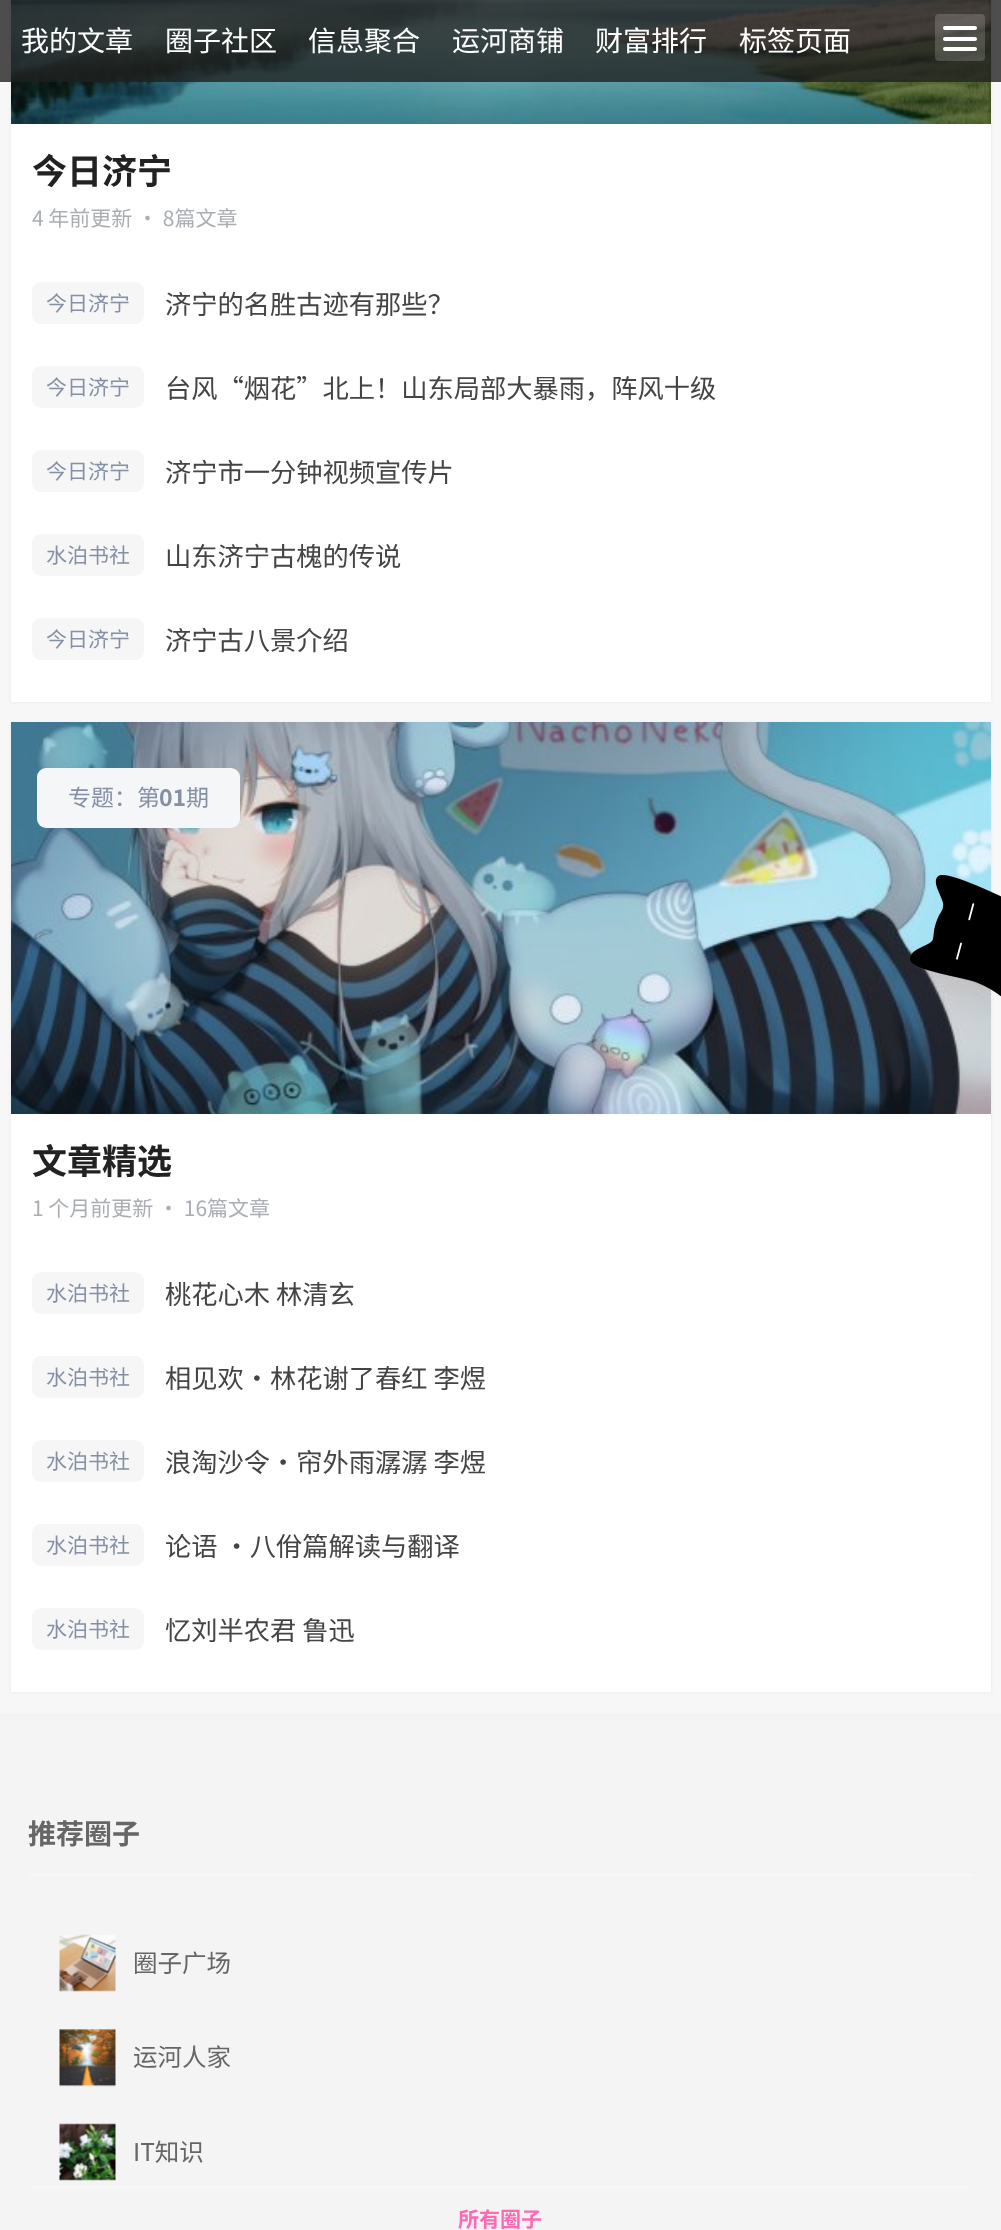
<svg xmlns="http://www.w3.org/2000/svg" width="1001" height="2230">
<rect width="100%" height="100%" fill="#f7f7f7"/>
<rect x="11" y="-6" width="980" height="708" fill="#627c991a" filter="blur(2px)"/>
<image x="11" y="0" width="980" height="124" href="media/1.png"/>
<rect width="1001" height="82" fill="#00000094"/>
<rect width="1001" height="82" fill="#33333366"/>
<rect width="1001" height="82" fill="#3333332b"/>
<text x="21" y="51" style="font-family:Noto Sans CJK SC;font-size:28px;fill:#fff">我的文章</text>
<text x="165" y="51" style="font-family:Noto Sans CJK SC;font-size:28px;fill:#fff">圈子社区</text>
<text x="308" y="51" style="font-family:Noto Sans CJK SC;font-size:28px;fill:#fff">信息聚合</text>
<text x="452" y="51" style="font-family:Noto Sans CJK SC;font-size:28px;fill:#fff">运河商铺</text>
<text x="595" y="51" style="font-family:Noto Sans CJK SC;font-size:28px;fill:#fff">财富排行</text>
<text x="739" y="51" style="font-family:Noto Sans CJK SC;font-size:28px;fill:#fff">标签页面</text>
<rect x="935" y="14" width="50" height="47" rx="4" fill="#f6f6f62e"/>
<rect x="943" y="26" width="34" height="4" rx="2" fill="#fff"/>
<rect x="943" y="37" width="34" height="4" rx="2" fill="#fff"/>
<rect x="943" y="47" width="34" height="4" rx="2" fill="#fff"/>
<rect x="11" y="124" width="980" height="578" fill="#fff"/>
<text x="32" y="184" style="font-family:Noto Sans CJK SC;font-size:35px;font-weight:bold;fill:#222">今日济宁</text>
<text x="32" y="226" style="font-family:Noto Sans CJK SC;font-size:21px;fill:#aaaeb3">4 年前更新 · 8篇文章</text>
<rect x="32" y="282" width="112" height="42" rx="9" fill="#f6f6f6"/>
<text x="46" y="311" style="font-family:Noto Sans CJK SC;font-size:21px;fill:#8590a6">今日济宁</text>
<text x="165" y="314" style="font-family:Noto Sans CJK SC;font-size:26.25px;fill:#444">济宁的名胜古迹有那些？</text>
<rect x="32" y="366" width="112" height="42" rx="9" fill="#f6f6f6"/>
<text x="46" y="395" style="font-family:Noto Sans CJK SC;font-size:21px;fill:#8590a6">今日济宁</text>
<text x="165" y="398" style="font-family:Noto Sans CJK SC;font-size:26.25px;fill:#444">台风“烟花”北上！山东局部大暴雨，阵风十级</text>
<rect x="32" y="450" width="112" height="42" rx="9" fill="#f6f6f6"/>
<text x="46" y="479" style="font-family:Noto Sans CJK SC;font-size:21px;fill:#8590a6">今日济宁</text>
<text x="165" y="482" style="font-family:Noto Sans CJK SC;font-size:26.25px;fill:#444">济宁市一分钟视频宣传片</text>
<rect x="32" y="534" width="112" height="42" rx="9" fill="#f6f6f6"/>
<text x="46" y="563" style="font-family:Noto Sans CJK SC;font-size:21px;fill:#8590a6">水泊书社</text>
<text x="165" y="566" style="font-family:Noto Sans CJK SC;font-size:26.25px;fill:#444">山东济宁古槐的传说</text>
<rect x="32" y="618" width="112" height="42" rx="9" fill="#f6f6f6"/>
<text x="46" y="647" style="font-family:Noto Sans CJK SC;font-size:21px;fill:#8590a6">今日济宁</text>
<text x="165" y="650" style="font-family:Noto Sans CJK SC;font-size:26.25px;fill:#444">济宁古八景介绍</text>
<rect x="11" y="723" width="980" height="969" fill="#627c991a" filter="blur(2px)"/>
<rect x="11" y="1114" width="980" height="578" fill="#fff"/>
<image x="11" y="722" width="980" height="392" href="media/2.png"/>
<rect x="37" y="768" width="203" height="60" rx="9" fill="#f5f6f7"/>
<text x="68" y="806" style="font-family:Noto Sans CJK SC;font-size:23px;fill:#8590a6">专题：第</text>
<text x="159" y="806" style="font-family:Noto Sans CJK SC;font-size:23px;font-weight:bold;fill:#8590a6">01</text>
<text x="186" y="806" style="font-family:Noto Sans CJK SC;font-size:23px;fill:#8590a6">期</text>
<text x="32" y="1174" style="font-family:Noto Sans CJK SC;font-size:35px;font-weight:bold;fill:#222">文章精选</text>
<text x="32" y="1216" style="font-family:Noto Sans CJK SC;font-size:21px;fill:#aaaeb3">1 个月前更新 · 16篇文章</text>
<rect x="32" y="1272" width="112" height="42" rx="9" fill="#f6f6f6"/>
<text x="46" y="1301" style="font-family:Noto Sans CJK SC;font-size:21px;fill:#8590a6">水泊书社</text>
<text x="165" y="1304" style="font-family:Noto Sans CJK SC;font-size:26.25px;fill:#444">桃花心木 林清玄</text>
<rect x="32" y="1356" width="112" height="42" rx="9" fill="#f6f6f6"/>
<text x="46" y="1385" style="font-family:Noto Sans CJK SC;font-size:21px;fill:#8590a6">水泊书社</text>
<text x="165" y="1388" style="font-family:Noto Sans CJK SC;font-size:26.25px;fill:#444">相见欢·林花谢了春红 李煜</text>
<rect x="32" y="1440" width="112" height="42" rx="9" fill="#f6f6f6"/>
<text x="46" y="1469" style="font-family:Noto Sans CJK SC;font-size:21px;fill:#8590a6">水泊书社</text>
<text x="165" y="1472" style="font-family:Noto Sans CJK SC;font-size:26.25px;fill:#444">浪淘沙令·帘外雨潺潺 李煜</text>
<rect x="32" y="1524" width="112" height="42" rx="9" fill="#f6f6f6"/>
<text x="46" y="1553" style="font-family:Noto Sans CJK SC;font-size:21px;fill:#8590a6">水泊书社</text>
<text x="165" y="1556" style="font-family:Noto Sans CJK SC;font-size:26.25px;fill:#444">论语 ·八佾篇解读与翻译</text>
<rect x="32" y="1608" width="112" height="42" rx="9" fill="#f6f6f6"/>
<text x="46" y="1637" style="font-family:Noto Sans CJK SC;font-size:21px;fill:#8590a6">水泊书社</text>
<text x="165" y="1640" style="font-family:Noto Sans CJK SC;font-size:26.25px;fill:#444">忆刘半农君 鲁迅</text>
<image x="910" y="875" width="91" height="122" href="media/3.png"/>
<rect y="1713" width="1001" height="517" fill="#f4f4f4"/>
<rect x="28" y="1874" width="945" height="2" fill="#f7f7f7"/>
<text x="28" y="1844" style="font-family:Noto Sans CJK SC;font-size:28px;font-weight:bold;fill:#666">推荐圈子</text>
<image x="59" y="1934" width="57" height="58" href="media/4.png"/>
<text x="133" y="1972" style="font-family:Noto Sans CJK SC;font-size:24.5px;fill:#666">圈子广场</text>
<image x="59" y="2029" width="57" height="58" href="media/5.png"/>
<text x="133" y="2066" style="font-family:Noto Sans CJK SC;font-size:24.5px;fill:#666">运河人家</text>
<image x="59" y="2123" width="57" height="58" href="media/6.png"/>
<text x="133" y="2161" style="font-family:Noto Sans CJK SC;font-size:24.5px;fill:#666">IT知识</text>
<rect x="28" y="2186" width="945" height="2" fill="#f5f6f7"/>
<text x="458" y="2227" style="font-family:Noto Sans CJK SC;font-size:21px;font-weight:bold;fill:#ff69b4">所有圈子</text>
</svg>
